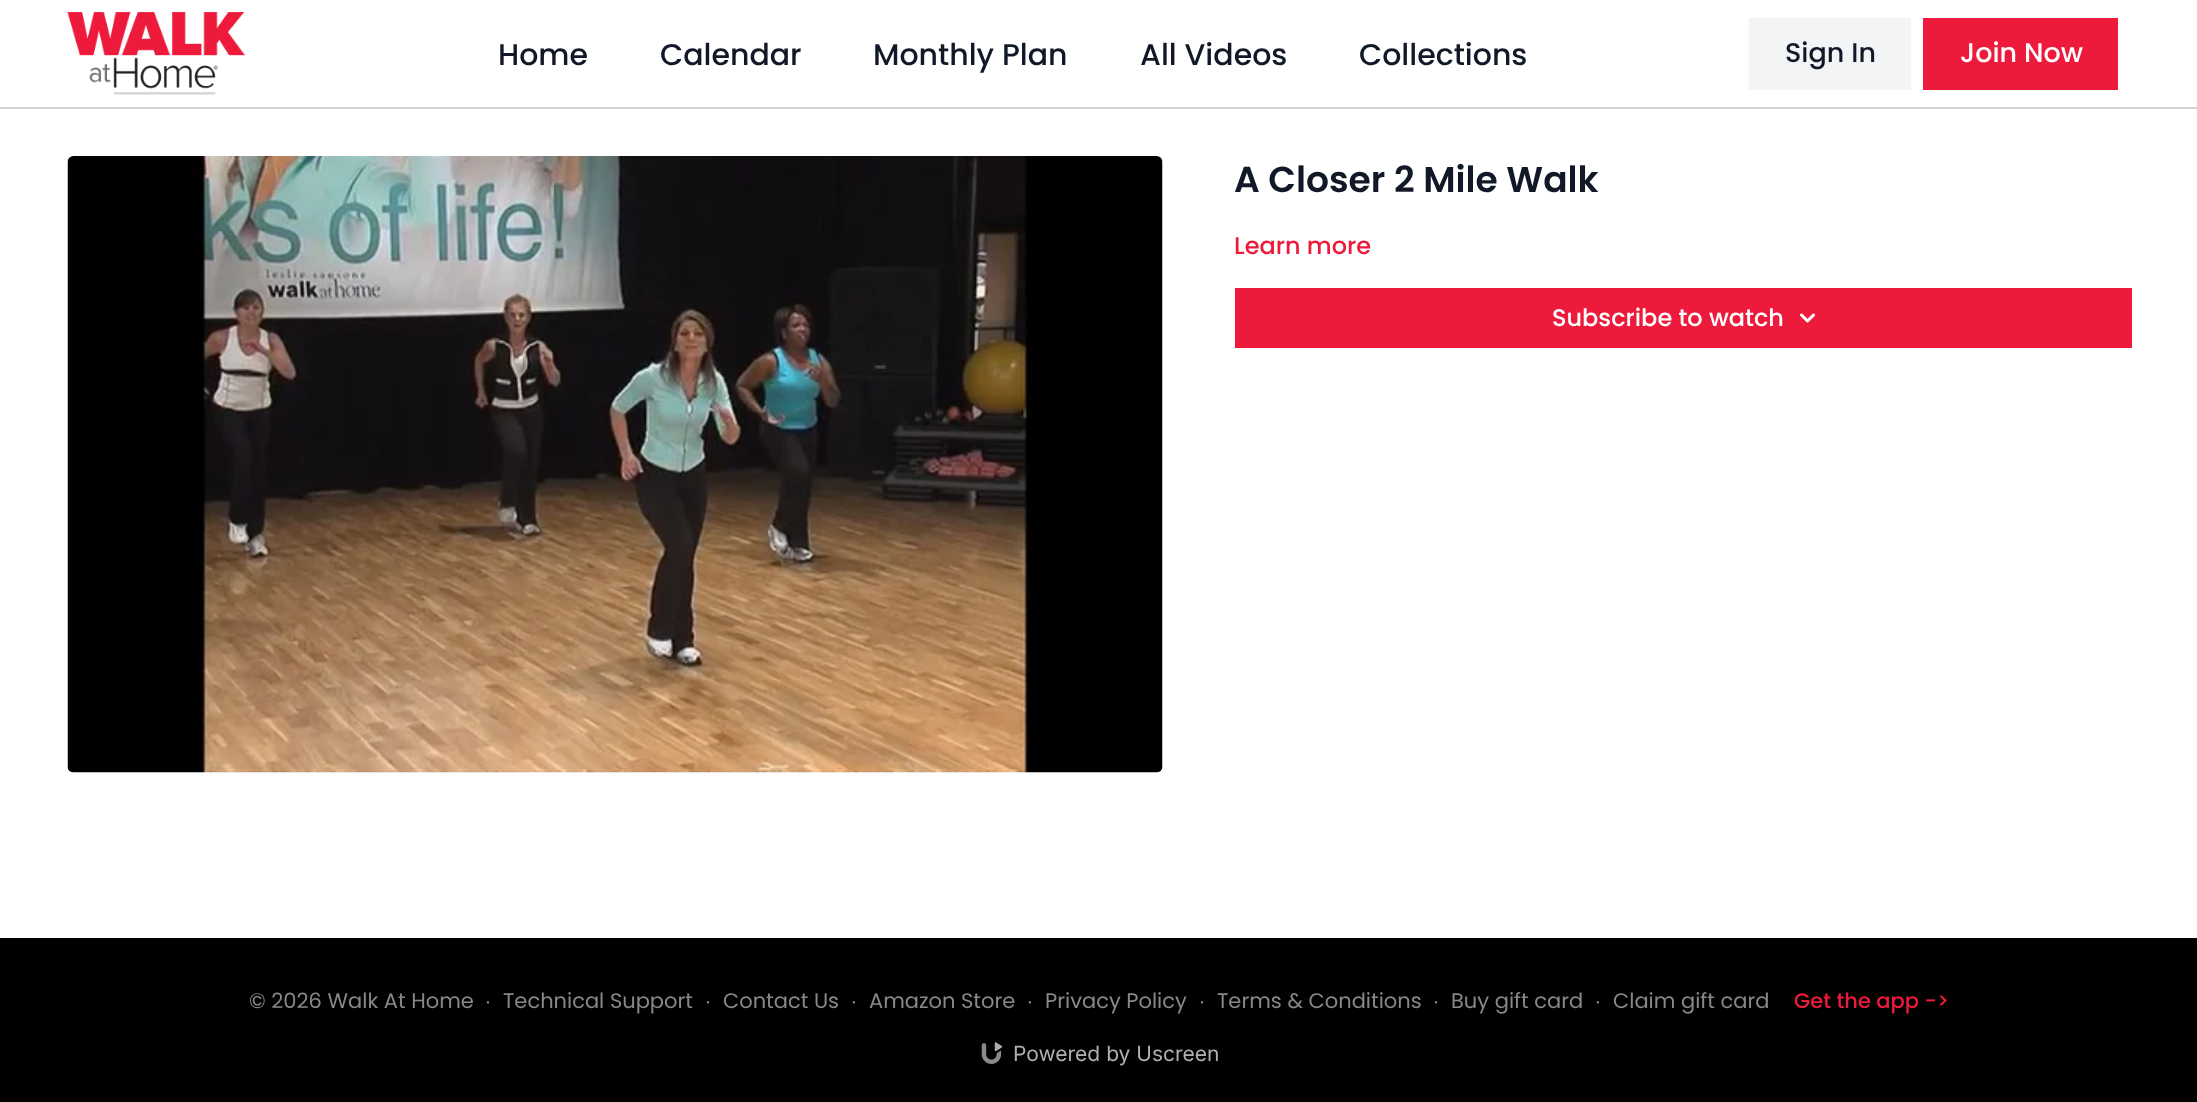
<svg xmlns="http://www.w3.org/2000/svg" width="2197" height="1102">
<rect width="100%" height="100%" fill="#fff"/>
<rect y="107" width="2197" height="2" fill="#d1d5db"/>
<image x="67" y="12" width="178" height="83" href="media/1.png"/>
<text x="498" y="65" style="font-family:Poppins;font-size:30px;font-weight:500;fill:#111827">Home</text>
<text x="660" y="65" style="font-family:Poppins;font-size:30px;font-weight:500;fill:#111827">Calendar</text>
<text x="873" y="65" style="font-family:Poppins;font-size:30px;font-weight:500;fill:#111827">Monthly Plan</text>
<text x="1140" y="65" style="font-family:Poppins;font-size:30px;font-weight:500;fill:#111827">All Videos</text>
<text x="1359" y="65" style="font-family:Poppins;font-size:30px;font-weight:500;fill:#111827">Collections</text>
<rect x="1749" y="18" width="162" height="72" fill="#f3f4f6"/>
<text x="1785" y="62" style="font-family:Poppins;font-size:27px;font-weight:500;fill:#111827">Sign In</text>
<rect x="1923" y="18" width="195" height="72" fill="#ed1a3b"/>
<text x="1960" y="62" style="font-family:Poppins;font-size:27px;font-weight:500;fill:#fff">Join Now</text>
<image x="67" y="156" width="1096" height="617" href="media/2.png"/>
<text x="1234" y="192" style="font-family:Poppins;font-size:36px;font-weight:600;fill:#111827">A Closer 2 Mile Walk</text>
<text x="1234" y="254" style="font-family:Poppins;font-size:24px;font-weight:500;fill:#ed1a3b">Learn more</text>
<rect x="1235" y="288" width="897" height="60" fill="#ed1a3b"/>
<text x="1552" y="326" style="font-family:Poppins;font-size:24px;font-weight:500;fill:#fff">Subscribe to watch</text>
<image x="1800" y="313" width="15" height="10" href="media/3.png"/>
<rect y="938" width="2197" height="164" fill="#000"/>
<text x="249" y="1008" style="font-family:Poppins;font-size:21px;fill:#888">© 2026 Walk At Home</text>
<text x="485" y="1008" style="font-family:Liberation Sans;font-size:21px;fill:#888">∙</text>
<text x="503" y="1008" style="font-family:Poppins;font-size:21px;fill:#888">Technical Support</text>
<text x="705" y="1008" style="font-family:Liberation Sans;font-size:21px;fill:#888">∙</text>
<text x="723" y="1008" style="font-family:Poppins;font-size:21px;fill:#888">Contact Us</text>
<text x="851" y="1008" style="font-family:Liberation Sans;font-size:21px;fill:#888">∙</text>
<text x="869" y="1008" style="font-family:Poppins;font-size:21px;fill:#888">Amazon Store</text>
<text x="1027" y="1008" style="font-family:Liberation Sans;font-size:21px;fill:#888">∙</text>
<text x="1045" y="1008" style="font-family:Poppins;font-size:21px;fill:#888">Privacy Policy</text>
<text x="1199" y="1008" style="font-family:Liberation Sans;font-size:21px;fill:#888">∙</text>
<text x="1217" y="1008" style="font-family:Poppins;font-size:21px;fill:#888">Terms &amp; Conditions</text>
<text x="1433" y="1008" style="font-family:Liberation Sans;font-size:21px;fill:#888">∙</text>
<text x="1451" y="1008" style="font-family:Poppins;font-size:21px;fill:#888">Buy gift card</text>
<text x="1595" y="1008" style="font-family:Liberation Sans;font-size:21px;fill:#888">∙</text>
<text x="1613" y="1008" style="font-family:Poppins;font-size:21px;fill:#888">Claim gift card</text>
<text x="1794" y="1008" style="font-family:Poppins;font-size:21px;font-weight:500;fill:#ed1a3b">Get the app -&gt;</text>
<image x="981" y="1042" width="22" height="22" href="media/4.png"/>
<text x="1013" y="1061" style="font-family:Inter;font-size:21px;fill:#b0b0b0">Powered by Uscreen</text>
</svg>
